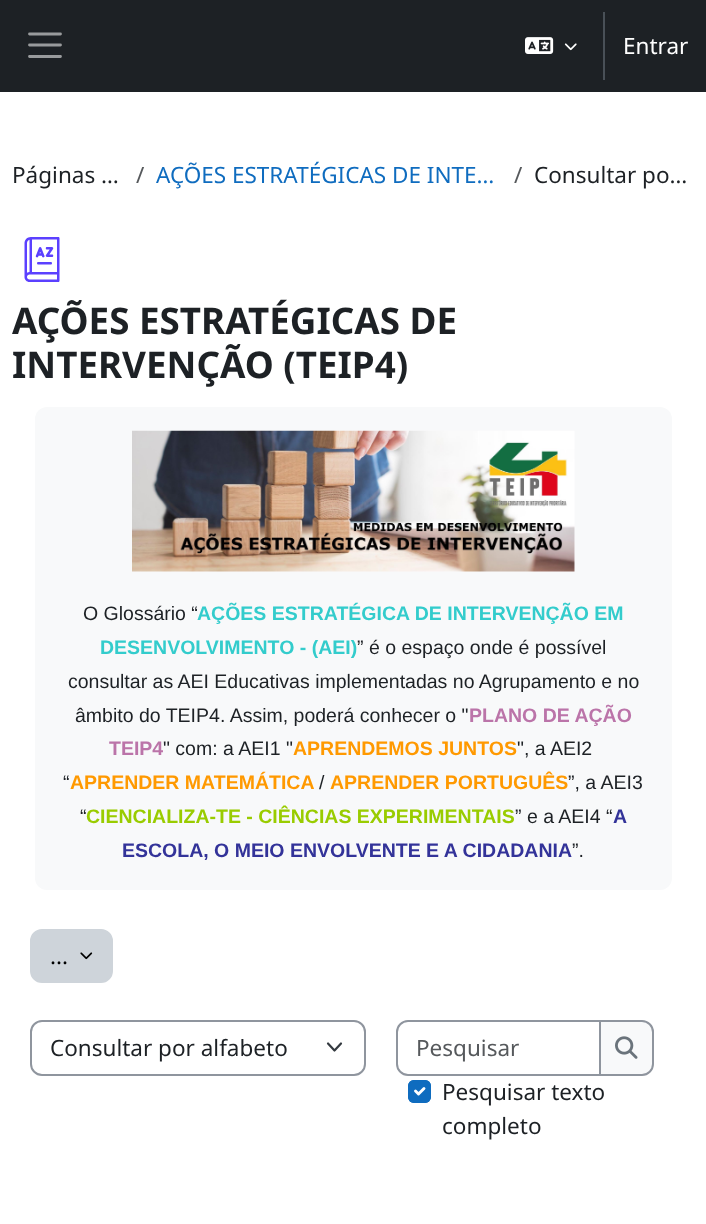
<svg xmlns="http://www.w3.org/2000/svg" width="706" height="1224">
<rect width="100%" height="100%" fill="#fff"/>
<rect width="706" height="92" fill="#1d2125"/>
<path d="M29.5 34h31m-31 11h31m-31 11.5h31" fill="none" stroke="#999b9d" stroke-width="2.8" stroke-linecap="round"/>
<image x="525" y="37" width="29" height="17" href="media/1.png"/>
<image x="564" y="43" width="13" height="8" href="media/2.png"/>
<rect x="603" y="12" width="2" height="68" fill="#495057"/>
<text x="623" y="54" style="font-family:Noto Sans;font-size:22.5px;fill:#fff">Entrar</text>
<text x="12" y="183" style="font-family:Noto Sans;font-size:22.5px;fill:#1d2125">Páginas …</text>
<text x="136" y="183" style="font-family:Noto Sans;font-size:22.5px;fill:#56595c">/</text>
<text x="156" y="183" style="font-family:Noto Sans;font-size:22.5px;fill:#0f6cbf">AÇÕES ESTRATÉGICAS DE INTE…</text>
<text x="514" y="183" style="font-family:Noto Sans;font-size:22.5px;fill:#56595c">/</text>
<text x="534" y="183" style="font-family:Noto Sans;font-size:22.5px;fill:#1d2125">Consultar po…</text>
<image x="24" y="237" width="36" height="45" href="media/3.png"/>
<text x="12" y="334" style="font-family:Noto Sans;font-size:36.75px;font-weight:bold;fill:#1d2125">AÇÕES ESTRATÉGICAS DE</text>
<text x="12" y="378" style="font-family:Noto Sans;font-size:36.75px;font-weight:bold;fill:#1d2125">INTERVENÇÃO (TEIP4)</text>
<rect x="35" y="407" width="637" height="483" rx="12" fill="#f8f9fa"/>
<image x="132" y="430" width="443" height="142" href="media/4.png"/>
<text x="83" y="620" style="font-family:Liberation Sans;font-size:19.5px;fill:#1d2125">O Glossário “</text>
<text x="197" y="620" style="font-family:Liberation Sans;font-size:19.5px;font-weight:bold;fill:#3cc">AÇÕES ESTRATÉGICA DE INTERVENÇÃO EM</text>
<text x="100" y="654" style="font-family:Liberation Sans;font-size:19.5px;font-weight:bold;fill:#3cc">DESENVOLVIMENTO - (AEI)</text>
<text x="357" y="654" style="font-family:Liberation Sans;font-size:19.5px;fill:#1d2125">” é o espaço onde é possível</text>
<text x="68" y="688" style="font-family:Liberation Sans;font-size:19.5px;fill:#1d2125">consultar as AEI Educativas implementadas no Agrupamento e no</text>
<text x="75" y="722" style="font-family:Liberation Sans;font-size:19.5px;fill:#1d2125">âmbito do TEIP4. Assim, poderá conhecer o "</text>
<text x="469" y="722" style="font-family:Liberation Sans;font-size:19.5px;font-weight:bold;fill:#bb74a9">PLANO DE AÇÃO</text>
<text x="109" y="755" style="font-family:Liberation Sans;font-size:19.5px;font-weight:bold;fill:#bb74a9">TEIP4</text>
<text x="163" y="755" style="font-family:Liberation Sans;font-size:19.5px;fill:#1d2125">" com: a AEI1 "</text>
<text x="293" y="755" style="font-family:Liberation Sans;font-size:19.5px;font-weight:bold;fill:#f90">APRENDEMOS JUNTOS</text>
<text x="517" y="755" style="font-family:Liberation Sans;font-size:19.5px;fill:#1d2125">", a AEI2</text>
<text x="63" y="789" style="font-family:Liberation Sans;font-size:19.5px;fill:#1d2125">“</text>
<text x="70" y="789" style="font-family:Liberation Sans;font-size:19.5px;font-weight:bold;fill:#f90">APRENDER MATEMÁTICA</text>
<text x="319" y="789" style="font-family:Liberation Sans;font-size:19.5px;fill:#1d2125">/</text>
<text x="330" y="789" style="font-family:Liberation Sans;font-size:19.5px;font-weight:bold;fill:#f90">APRENDER PORTUGUÊS</text>
<text x="568" y="789" style="font-family:Liberation Sans;font-size:19.5px;fill:#1d2125">”, a AEI3</text>
<text x="80" y="823" style="font-family:Liberation Sans;font-size:19.5px;fill:#1d2125">“</text>
<text x="86" y="823" style="font-family:Liberation Sans;font-size:19.5px;font-weight:bold;fill:#9c0">CIENCIALIZA-TE - CIÊNCIAS EXPERIMENTAIS</text>
<text x="515" y="823" style="font-family:Liberation Sans;font-size:19.5px;fill:#1d2125">” e a AEI4 “</text>
<text x="613" y="823" style="font-family:Liberation Sans;font-size:19.5px;font-weight:bold;fill:#339">A</text>
<text x="122" y="857" style="font-family:Liberation Sans;font-size:19.5px;font-weight:bold;fill:#339">ESCOLA, O MEIO ENVOLVENTE E A CIDADANIA</text>
<text x="572" y="857" style="font-family:Liberation Sans;font-size:19.5px;fill:#1d2125">”.</text>
<rect x="31" y="930" width="81" height="52" rx="11" fill="#ced4da" stroke="#ced4da" stroke-width="2"/>
<image x="80" y="952" width="13" height="8" href="media/5.png"/>
<text x="50" y="964" style="font-family:Noto Sans;font-size:22.5px;fill:#000">...</text>
<path d="M328 1043.5l6.5 7l6.5-7" fill="none" stroke="#343a40" stroke-width="2.2" stroke-linecap="round" stroke-linejoin="round"/>
<rect x="31" y="1021" width="334" height="54" rx="11" fill="none" stroke="#8f959e" stroke-width="2"/>
<text x="50" y="1056" style="font-family:Noto Sans;font-size:22.5px;fill:#1d2125">Consultar por alfabeto</text>
<path d="M408 1021h193v54h-193c-6 0-11-5-11-11v-32c0-6 5-11 11-11z" fill="none" stroke="#8f959e" stroke-width="2"/>
<text x="416" y="1056" style="font-family:Noto Sans;font-size:22.5px;fill:#56595c">Pesquisar</text>
<path d="M600 1021h42c6 0 11 5 11 11v32c0 6-5 11-11 11h-42z" fill="#f8f9fa" stroke="#8f959e" stroke-width="2"/>
<image x="615" y="1036" width="23" height="23" href="media/6.png"/>
<rect x="408" y="1080" width="23" height="23" rx="6" fill="#0f6cbf"/>
<path d="M415.5 1091l3 3l5.5-5.5" fill="none" stroke="#fff" stroke-width="2.9" stroke-linecap="round" stroke-linejoin="round"/>
<rect x="409" y="1081" width="21" height="21" rx="5" fill="none" stroke="#0f6cbf" stroke-width="2"/>
<text x="442" y="1100" style="font-family:Noto Sans;font-size:22.5px;fill:#1d2125">Pesquisar texto</text>
<text x="442" y="1134" style="font-family:Noto Sans;font-size:22.5px;fill:#1d2125">completo</text>
</svg>
